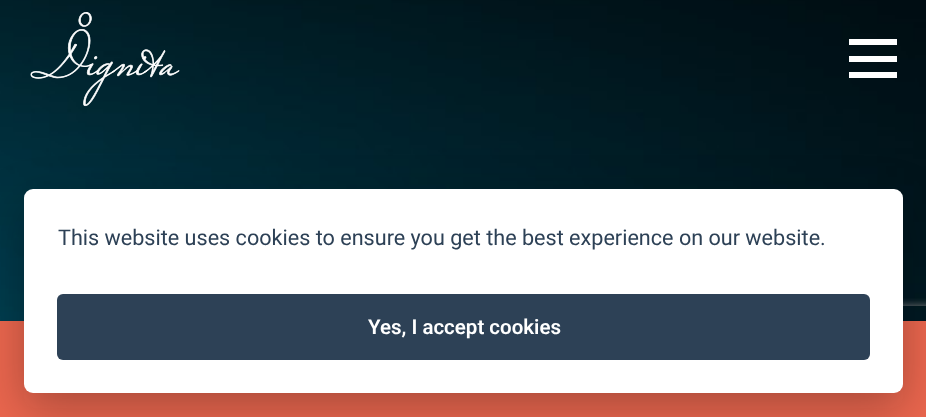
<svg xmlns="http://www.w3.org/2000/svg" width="926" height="417">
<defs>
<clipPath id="clip1"><rect x="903" y="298" width="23" height="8"/></clipPath>
</defs>
<rect width="100%" height="100%" fill="#fff"/>
<image x="0" y="0" width="926" height="321" href="media/1.png"/>
<g clip-path="url(#clip1)">
<rect x="822" y="306" width="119" height="90" rx="3" fill="#808080" filter="blur(4px)"/>
</g>
<image x="30" y="12" width="150" height="95" href="media/2.png"/>
<rect x="849" y="39" width="48" height="6" fill="#fff"/>
<rect x="849" y="56" width="48" height="6" fill="#fff"/>
<rect x="849" y="72" width="48" height="6" fill="#fff"/>
<rect y="321" width="926" height="96" fill="#ea664e"/>
<rect x="24" y="204" width="879" height="204" rx="9" fill="#02020347" filter="blur(22.5px)"/>
<rect x="24" y="189" width="879" height="204" rx="9" fill="#fff"/>
<text x="58" y="245" style="font-family:Roboto;font-size:21.6px;fill:#2d4156">This website uses cookies to ensure you get the best experience on our website.</text>
<rect x="57" y="294" width="813" height="66" rx="6" fill="#2d4156"/>
<text x="368" y="334" style="font-family:Roboto;font-size:20.5px;font-weight:600;fill:#fff">Yes, I accept cookies</text>
</svg>
